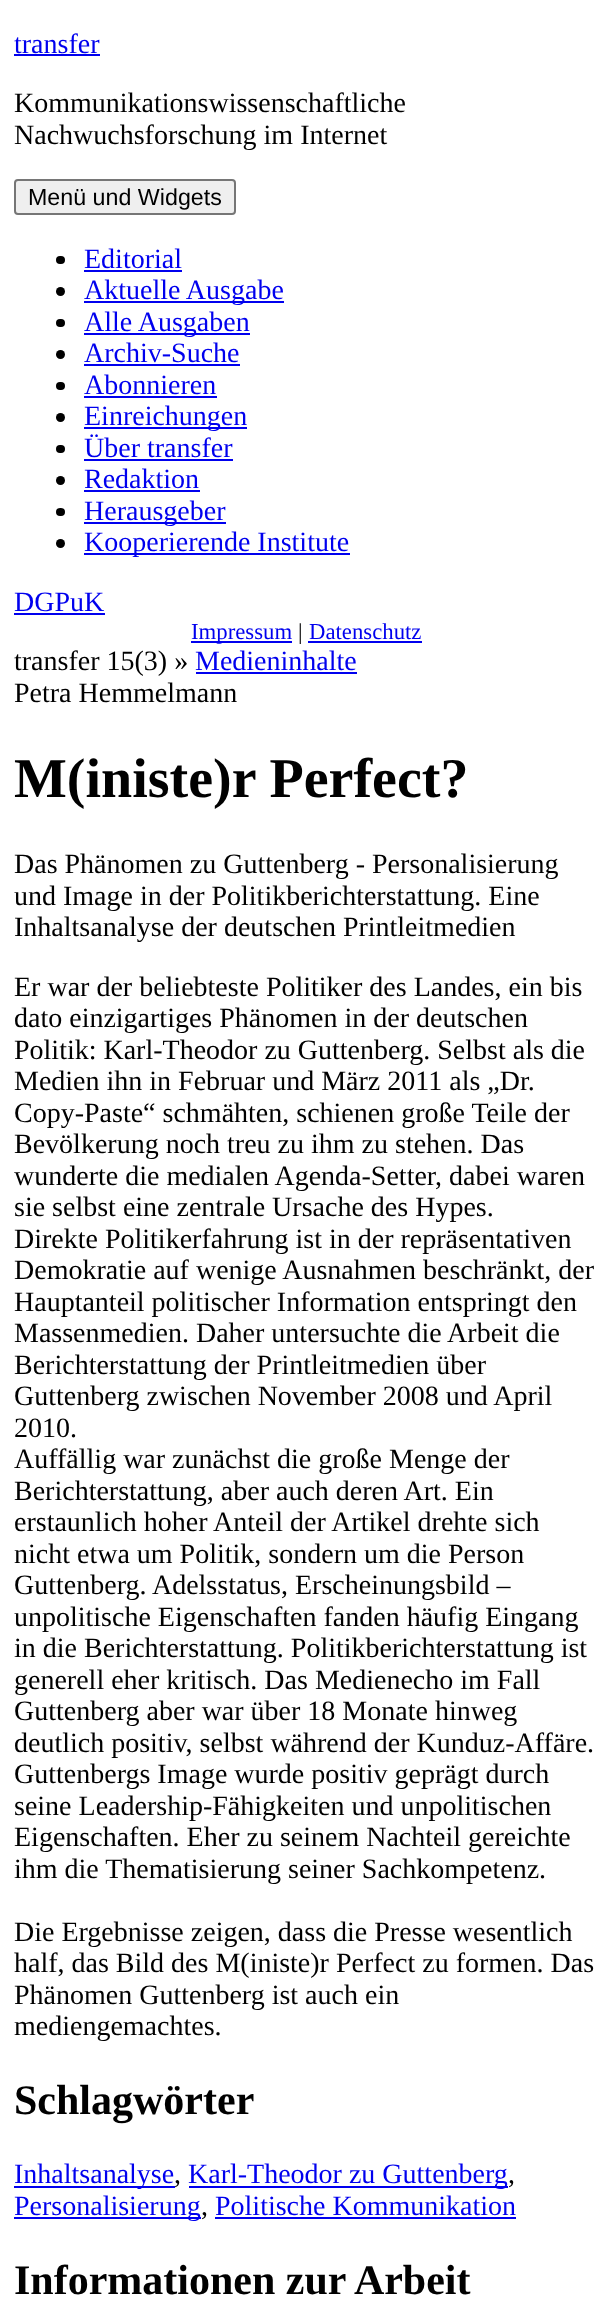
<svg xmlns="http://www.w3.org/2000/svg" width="611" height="2309">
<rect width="100%" height="100%" fill="#fff"/>
<text x="14" y="53" style="font-family:Liberation Serif;font-size:28px;fill:#00e">transfer</text>
<rect x="14" y="54" width="86" height="2" fill="#00e"/>
<text x="14" y="112" style="font-family:Liberation Serif;font-size:28px;fill:#000">Kommunikationswissenschaftliche</text>
<text x="14" y="144" style="font-family:Liberation Serif;font-size:28px;fill:#000">Nachwuchsforschung im Internet</text>
<rect x="15" y="180" width="220" height="34" rx="3" fill="#efefef" stroke="#767676" stroke-width="2"/>
<text x="28" y="205" style="font-family:Liberation Sans;font-size:23.25px;fill:#000">Menü und Widgets</text>
<rect x="56" y="256" width="9" height="8" rx="4" fill="#000"/>
<text x="84" y="268" style="font-family:Liberation Serif;font-size:28px;fill:#00e">Editorial</text>
<rect x="84" y="270" width="98" height="2" fill="#00e"/>
<circle cx="60.5" cy="291.5" r="4.5" fill="#000"/>
<rect x="84" y="301" width="200" height="2" fill="#00e"/>
<text x="84" y="299" style="font-family:Liberation Serif;font-size:28px;fill:#00e">Aktuelle Ausgabe</text>
<rect x="56" y="319" width="9" height="8" rx="4" fill="#000"/>
<rect x="84" y="333" width="166" height="2" fill="#00e"/>
<text x="84" y="331" style="font-family:Liberation Serif;font-size:28px;fill:#00e">Alle Ausgaben</text>
<circle cx="60.5" cy="354.5" r="4.5" fill="#000"/>
<text x="84" y="362" style="font-family:Liberation Serif;font-size:28px;fill:#00e">Archiv-Suche</text>
<rect x="84" y="364" width="156" height="2" fill="#00e"/>
<rect x="56" y="382" width="9" height="8" rx="4" fill="#000"/>
<text x="84" y="394" style="font-family:Liberation Serif;font-size:28px;fill:#00e">Abonnieren</text>
<rect x="84" y="396" width="133" height="2" fill="#00e"/>
<circle cx="60.5" cy="417.5" r="4.5" fill="#000"/>
<rect x="84" y="427" width="163" height="2" fill="#00e"/>
<text x="84" y="425" style="font-family:Liberation Serif;font-size:28px;fill:#00e">Einreichungen</text>
<rect x="56" y="445" width="9" height="8" rx="4" fill="#000"/>
<text x="84" y="457" style="font-family:Liberation Serif;font-size:28px;fill:#00e">Über transfer</text>
<rect x="84" y="459" width="149" height="2" fill="#00e"/>
<circle cx="60.5" cy="480.5" r="4.5" fill="#000"/>
<text x="84" y="488" style="font-family:Liberation Serif;font-size:28px;fill:#00e">Redaktion</text>
<rect x="84" y="490" width="116" height="2" fill="#00e"/>
<rect x="56" y="508" width="9" height="8" rx="4" fill="#000"/>
<rect x="84" y="522" width="142" height="2" fill="#00e"/>
<text x="84" y="520" style="font-family:Liberation Serif;font-size:28px;fill:#00e">Herausgeber</text>
<circle cx="60.5" cy="543.5" r="4.5" fill="#000"/>
<rect x="84" y="553" width="266" height="2" fill="#00e"/>
<text x="84" y="551" style="font-family:Liberation Serif;font-size:28px;fill:#00e">Kooperierende Institute</text>
<text x="14" y="611" style="font-family:Liberation Serif;font-size:28px;fill:#00e">DGPuK</text>
<rect x="14" y="613" width="91" height="2" fill="#00e"/>
<rect x="191" y="641" width="101" height="2" fill="#00e"/>
<text x="191" y="639" style="font-family:Liberation Serif;font-size:22.75px;fill:#00e">Impressum</text>
<text x="298" y="639" style="font-family:Liberation Serif;font-size:22.75px;fill:#000">|</text>
<text x="309" y="639" style="font-family:Liberation Serif;font-size:22.75px;fill:#00e">Datenschutz</text>
<rect x="308" y="641" width="114" height="2" fill="#00e"/>
<text x="14" y="670" style="font-family:Liberation Serif;font-size:28px;fill:#000">transfer 15(3) »</text>
<text x="195" y="670" style="font-family:Liberation Serif;font-size:28px;fill:#00e">Medieninhalte</text>
<rect x="196" y="672" width="161" height="2" fill="#00e"/>
<text x="14" y="702" style="font-family:Liberation Serif;font-size:28px;fill:#000">Petra Hemmelmann</text>
<text x="14" y="797" style="font-family:Liberation Serif;font-size:56px;font-weight:bold;fill:#000">M(iniste)r Perfect?</text>
<text x="14" y="873" style="font-family:Liberation Serif;font-size:28px;fill:#000">Das Phänomen zu Guttenberg - Personalisierung</text>
<text x="14" y="905" style="font-family:Liberation Serif;font-size:28px;fill:#000">und Image in der Politikberichterstattung. Eine</text>
<text x="14" y="936" style="font-family:Liberation Serif;font-size:28px;fill:#000">Inhaltsanalyse der deutschen Printleitmedien</text>
<text x="14" y="996" style="font-family:Liberation Serif;font-size:28px;fill:#000">Er war der beliebteste Politiker des Landes, ein bis</text>
<text x="14" y="1027" style="font-family:Liberation Serif;font-size:28px;fill:#000">dato einzigartiges Phänomen in der deutschen</text>
<text x="14" y="1059" style="font-family:Liberation Serif;font-size:28px;fill:#000">Politik: Karl-Theodor zu Guttenberg. Selbst als die</text>
<text x="14" y="1090" style="font-family:Liberation Serif;font-size:28px;fill:#000">Medien ihn in Februar und März 2011 als „Dr.</text>
<text x="14" y="1122" style="font-family:Liberation Serif;font-size:28px;fill:#000">Copy-Paste“ schmähten, schienen große Teile der</text>
<text x="14" y="1153" style="font-family:Liberation Serif;font-size:28px;fill:#000">Bevölkerung noch treu zu ihm zu stehen. Das</text>
<text x="14" y="1185" style="font-family:Liberation Serif;font-size:28px;fill:#000">wunderte die medialen Agenda-Setter, dabei waren</text>
<text x="14" y="1216" style="font-family:Liberation Serif;font-size:28px;fill:#000">sie selbst eine zentrale Ursache des Hypes.</text>
<text x="14" y="1248" style="font-family:Liberation Serif;font-size:28px;fill:#000">Direkte Politikerfahrung ist in der repräsentativen</text>
<text x="14" y="1279" style="font-family:Liberation Serif;font-size:28px;fill:#000">Demokratie auf wenige Ausnahmen beschränkt, der</text>
<text x="14" y="1311" style="font-family:Liberation Serif;font-size:28px;fill:#000">Hauptanteil politischer Information entspringt den</text>
<text x="14" y="1342" style="font-family:Liberation Serif;font-size:28px;fill:#000">Massenmedien. Daher untersuchte die Arbeit die</text>
<text x="14" y="1374" style="font-family:Liberation Serif;font-size:28px;fill:#000">Berichterstattung der Printleitmedien über</text>
<text x="14" y="1405" style="font-family:Liberation Serif;font-size:28px;fill:#000">Guttenberg zwischen November 2008 und April</text>
<text x="14" y="1437" style="font-family:Liberation Serif;font-size:28px;fill:#000">2010.</text>
<text x="14" y="1468" style="font-family:Liberation Serif;font-size:28px;fill:#000">Auffällig war zunächst die große Menge der</text>
<text x="14" y="1500" style="font-family:Liberation Serif;font-size:28px;fill:#000">Berichterstattung, aber auch deren Art. Ein</text>
<text x="14" y="1531" style="font-family:Liberation Serif;font-size:28px;fill:#000">erstaunlich hoher Anteil der Artikel drehte sich</text>
<text x="14" y="1563" style="font-family:Liberation Serif;font-size:28px;fill:#000">nicht etwa um Politik, sondern um die Person</text>
<text x="14" y="1594" style="font-family:Liberation Serif;font-size:28px;fill:#000">Guttenberg. Adelsstatus, Erscheinungsbild –</text>
<text x="14" y="1626" style="font-family:Liberation Serif;font-size:28px;fill:#000">unpolitische Eigenschaften fanden häufig Eingang</text>
<text x="14" y="1657" style="font-family:Liberation Serif;font-size:28px;fill:#000">in die Berichterstattung. Politikberichterstattung ist</text>
<text x="14" y="1689" style="font-family:Liberation Serif;font-size:28px;fill:#000">generell eher kritisch. Das Medienecho im Fall</text>
<text x="14" y="1720" style="font-family:Liberation Serif;font-size:28px;fill:#000">Guttenberg aber war über 18 Monate hinweg</text>
<text x="14" y="1752" style="font-family:Liberation Serif;font-size:28px;fill:#000">deutlich positiv, selbst während der Kunduz-Affäre.</text>
<text x="14" y="1783" style="font-family:Liberation Serif;font-size:28px;fill:#000">Guttenbergs Image wurde positiv geprägt durch</text>
<text x="14" y="1815" style="font-family:Liberation Serif;font-size:28px;fill:#000">seine Leadership-Fähigkeiten und unpolitischen</text>
<text x="14" y="1846" style="font-family:Liberation Serif;font-size:28px;fill:#000">Eigenschaften. Eher zu seinem Nachteil gereichte</text>
<text x="14" y="1878" style="font-family:Liberation Serif;font-size:28px;fill:#000">ihm die Thematisierung seiner Sachkompetenz.</text>
<text x="14" y="1941" style="font-family:Liberation Serif;font-size:28px;fill:#000">Die Ergebnisse zeigen, dass die Presse wesentlich</text>
<text x="14" y="1972" style="font-family:Liberation Serif;font-size:28px;fill:#000">half, das Bild des M(iniste)r Perfect zu formen. Das</text>
<text x="14" y="2004" style="font-family:Liberation Serif;font-size:28px;fill:#000">Phänomen Guttenberg ist auch ein</text>
<text x="14" y="2035" style="font-family:Liberation Serif;font-size:28px;fill:#000">mediengemachtes.</text>
<text x="14" y="2114" style="font-family:Liberation Serif;font-size:42px;font-weight:bold;fill:#000">Schlagwörter</text>
<rect x="14" y="2186" width="161" height="2" fill="#00e"/>
<text x="14" y="2183" style="font-family:Liberation Serif;font-size:28px;fill:#00e">Inhaltsanalyse</text>
<text x="174" y="2183" style="font-family:Liberation Serif;font-size:28px;fill:#000">,</text>
<rect x="189" y="2186" width="319" height="2" fill="#00e"/>
<text x="188" y="2183" style="font-family:Liberation Serif;font-size:28px;fill:#00e">Karl-Theodor zu Guttenberg</text>
<text x="508" y="2183" style="font-family:Liberation Serif;font-size:28px;fill:#000">,</text>
<rect x="14" y="2217" width="187" height="2" fill="#00e"/>
<text x="14" y="2215" style="font-family:Liberation Serif;font-size:28px;fill:#00e">Personalisierung</text>
<text x="201" y="2215" style="font-family:Liberation Serif;font-size:28px;fill:#000">,</text>
<text x="215" y="2215" style="font-family:Liberation Serif;font-size:28px;fill:#00e">Politische Kommunikation</text>
<rect x="215" y="2217" width="301" height="2" fill="#00e"/>
<text x="14" y="2294" style="font-family:Liberation Serif;font-size:42px;font-weight:bold;fill:#000">Informationen zur Arbeit</text>
</svg>
